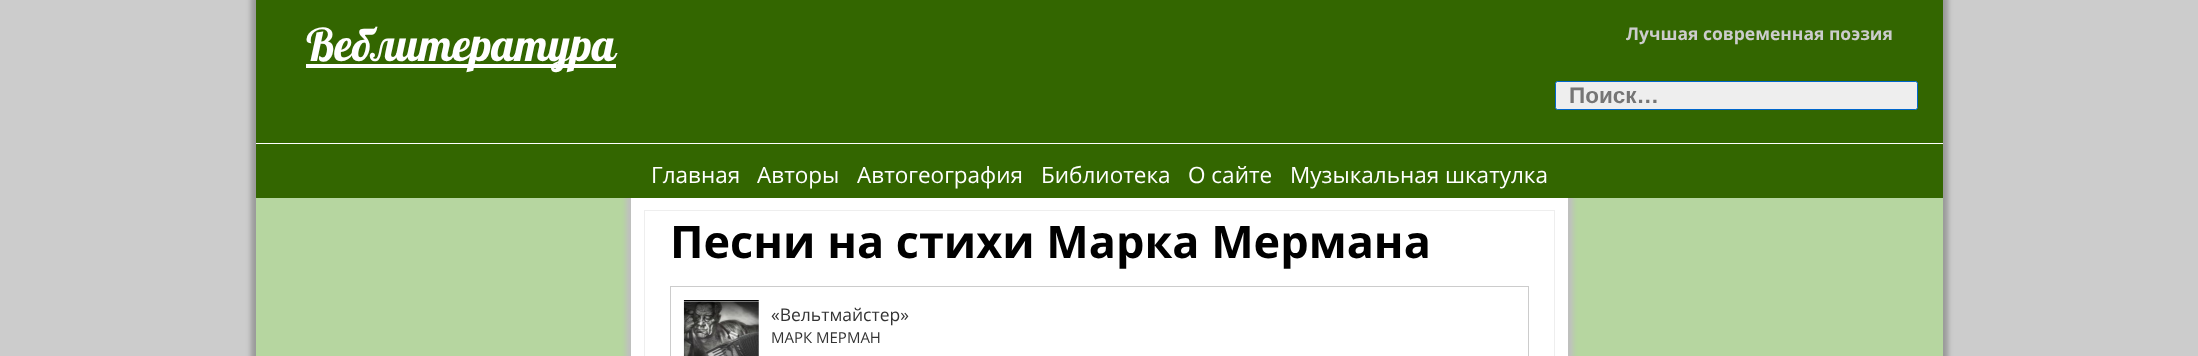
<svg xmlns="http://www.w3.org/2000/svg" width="2198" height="356">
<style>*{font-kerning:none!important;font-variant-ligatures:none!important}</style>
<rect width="100%" height="100%" fill="#ccc"/>
<rect x="251" y="-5" width="1697" height="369" fill="#999" filter="blur(2.5px)"/>
<rect x="256" y="198" width="1687" height="158" fill="#b6d6a0"/>
<rect x="256" width="1687" height="143" fill="#360"/>
<rect x="306" y="64" width="310" height="4" fill="#fff"/>
<text x="306" y="61" style="font-family:Lobster;font-size:45px;fill:#fff">Веблитература</text>
<text x="1626" y="40" style="font-family:Open Sans;font-size:17.5px;font-weight:bold;fill:#ccc">Лучшая современная поэзия</text>
<rect x="1555.5" y="81.5" width="362" height="28" rx="2" fill="#eee" stroke="#06c"/>
<text x="1569" y="103" style="font-family:Liberation Sans;font-size:22.5px;font-weight:bold;fill:#757575">Поиск…</text>
<rect x="626" y="193" width="947" height="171" fill="#bfbfbf" filter="blur(2.5px)"/>
<rect x="256" y="144" width="1687" height="54" fill="#360"/>
<rect x="256" y="143" width="1687" height="1" fill="#fff"/>
<text x="651" y="183" style="font-family:Open Sans;font-size:22.5px;fill:#fff">Главная</text>
<text x="757" y="183" style="font-family:Open Sans;font-size:22.5px;fill:#fff">Авторы</text>
<text x="857" y="183" style="font-family:Open Sans;font-size:22.5px;fill:#fff">Автогеография</text>
<text x="1041" y="183" style="font-family:Open Sans;font-size:22.5px;fill:#fff">Библиотека</text>
<text x="1188" y="183" style="font-family:Open Sans;font-size:22.5px;fill:#fff">О сайте</text>
<text x="1290" y="183" style="font-family:Open Sans;font-size:22.5px;fill:#fff">Музыкальная шкатулка</text>
<rect x="631" y="198" width="937" height="158" fill="#fff"/>
<rect x="644.5" y="210.5" width="910" height="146" fill="none" stroke="#eee"/>
<text x="670" y="258" style="font-family:Open Sans;font-size:45px;font-weight:bold;fill:#000">Песни на стихи Марка Мермана</text>
<rect x="670.5" y="286.5" width="858" height="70" fill="none" stroke="#ccc"/>
<image x="683" y="300" width="76" height="56" href="media/1.png"/>
<text x="771" y="321" style="font-family:Open Sans;font-size:17.5px;fill:#333">«Вельтмайстер»</text>
<text x="771" y="343" style="font-family:Open Sans;font-size:15px;fill:#333">МАРК МЕРМАН</text>
</svg>
